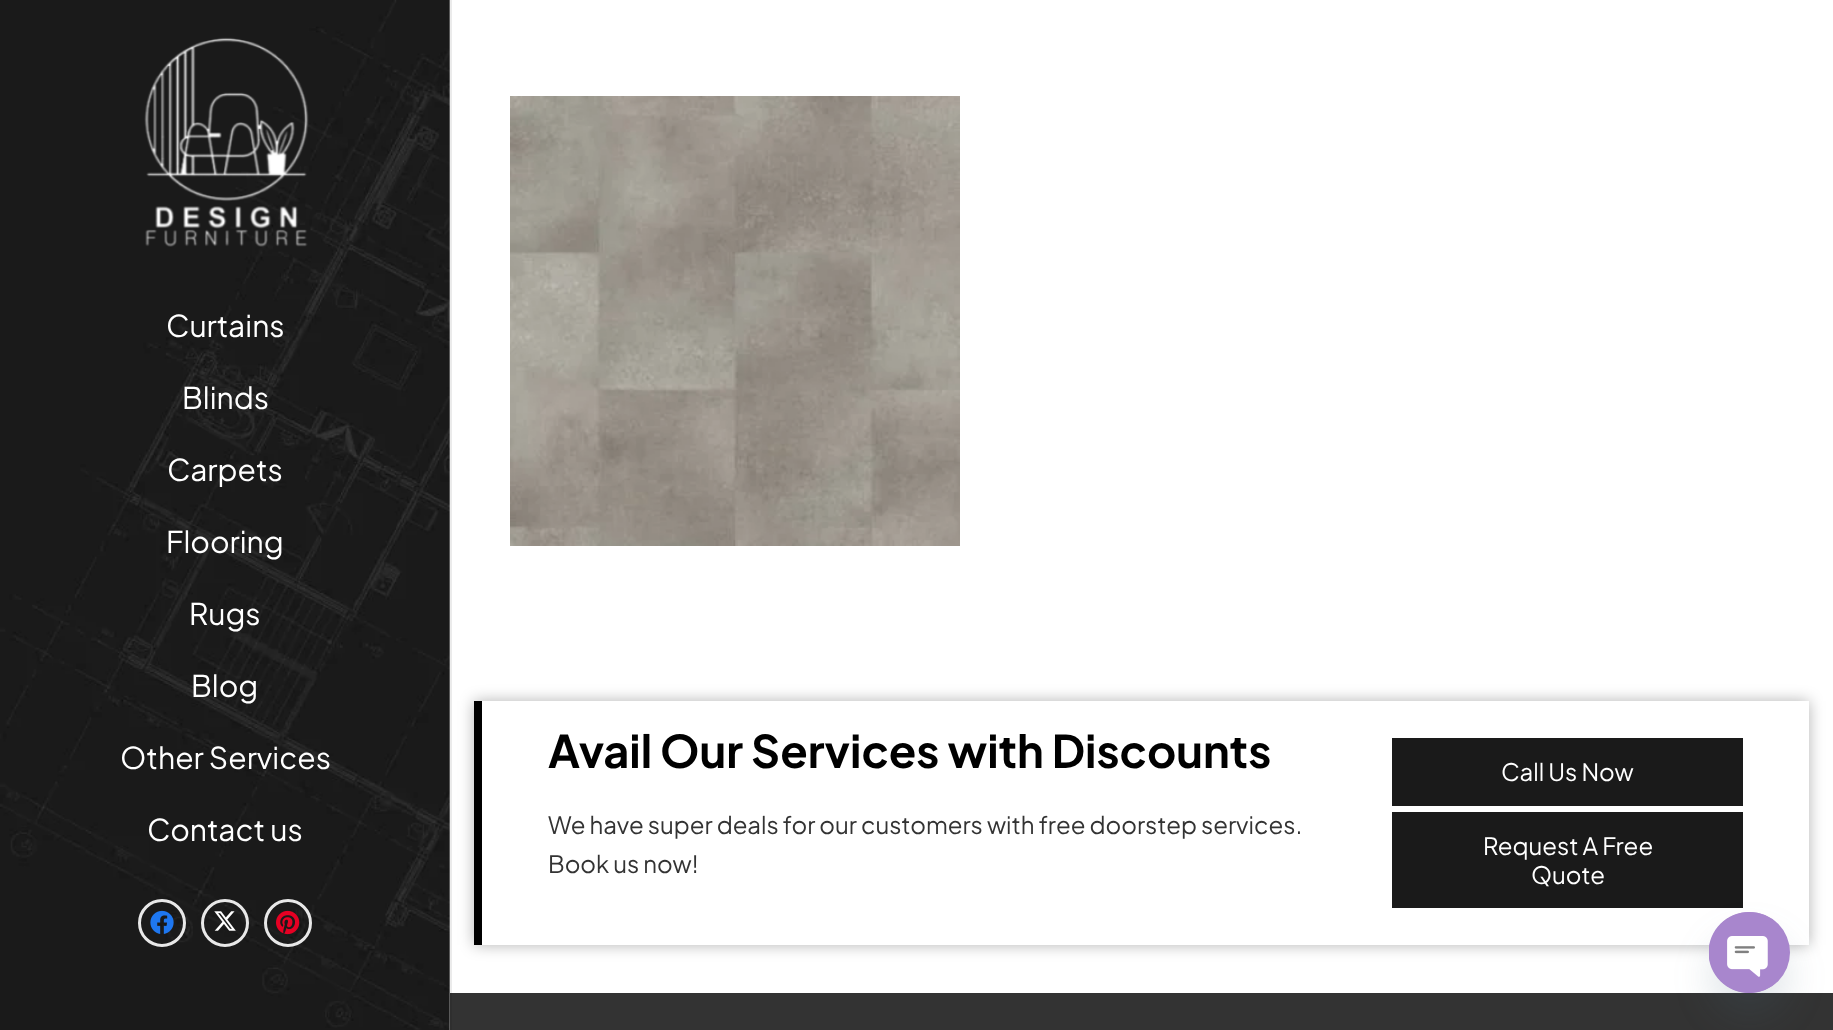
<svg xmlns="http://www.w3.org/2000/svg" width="1833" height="1030">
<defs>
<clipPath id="clip1"><path d="M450 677h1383v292h-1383zm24 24h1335v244h-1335z" clip-rule="evenodd"/></clipPath>
</defs>
<rect width="100%" height="100%" fill="#fff"/>
<g clip-path="url(#clip1)">
<rect x="474" y="701" width="1335" height="244" fill="#0000004d" filter="blur(7.5px)"/>
</g>
<rect x="450" y="993" width="1383" height="37" fill="#333"/>
<path d="M2 1030v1h450v-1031h-2v1030z" fill="#00000014"/>
<image x="0" y="0" width="450" height="1030" href="media/1.png"/>
<image x="144" y="37" width="165" height="210" href="media/2.png"/>
<text x="166" y="337" style="font-family:Plus Jakarta Sans;font-size:30px;fill:#fff">Curtains</text>
<text x="182" y="409" style="font-family:Plus Jakarta Sans;font-size:30px;fill:#fff">Blinds</text>
<text x="167" y="481" style="font-family:Plus Jakarta Sans;font-size:30px;fill:#fff">Carpets</text>
<text x="166" y="553" style="font-family:Plus Jakarta Sans;font-size:30px;fill:#fff">Flooring</text>
<text x="189" y="625" style="font-family:Plus Jakarta Sans;font-size:30px;fill:#fff">Rugs</text>
<text x="191" y="697" style="font-family:Plus Jakarta Sans;font-size:30px;fill:#fff">Blog</text>
<text x="120" y="769" style="font-family:Plus Jakarta Sans;font-size:30px;fill:#fff">Other Services</text>
<text x="147" y="841" style="font-family:Plus Jakarta Sans;font-size:30px;fill:#fff">Contact us</text>
<circle cx="162" cy="923" r="22.5" fill="none" stroke="#e8e8e8" stroke-width="3"/>
<image x="150" y="910" width="24" height="24" href="media/3.png"/>
<circle cx="225" cy="923" r="22.5" fill="none" stroke="#e8e8e8" stroke-width="3"/>
<image x="214" y="911" width="22" height="20" href="media/4.png"/>
<circle cx="288" cy="923" r="22.5" fill="none" stroke="#e8e8e8" stroke-width="3"/>
<image x="276" y="910" width="24" height="25" href="media/5.png"/>
<image x="510" y="96" width="450" height="450" href="media/6.png"/>
<rect x="474" y="701" width="8" height="244" fill="#000"/>
<text x="548" y="768" style="font-family:Plus Jakarta Sans;font-size:45px;font-weight:bold;fill:#000">Avail Our Services with Discounts</text>
<text x="548" y="834" style="font-family:Plus Jakarta Sans;font-size:24px;fill:#333">We have super deals for our customers with free doorstep services.</text>
<text x="548" y="873" style="font-family:Plus Jakarta Sans;font-size:24px;fill:#333">Book us now!</text>
<rect x="1392" y="738" width="351" height="68" fill="#1a1a1a"/>
<text x="1501" y="781" style="font-family:Plus Jakarta Sans;font-size:24px;fill:#fff">Call Us Now</text>
<rect x="1392" y="812" width="351" height="96" fill="#1a1a1a"/>
<text x="1483" y="855" style="font-family:Plus Jakarta Sans;font-size:24px;fill:#fff">Request A Free</text>
<text x="1531" y="884" style="font-family:Plus Jakarta Sans;font-size:24px;fill:#fff">Quote</text>
<rect x="1709" y="936" width="81" height="81" rx="40.5" fill="#49687e29" filter="blur(18px)"/>
<circle cx="1749.5" cy="952.5" r="40.5" fill="#a886cd"/>
<image x="1709" y="912" width="67" height="81" href="media/7.png"/>
</svg>
